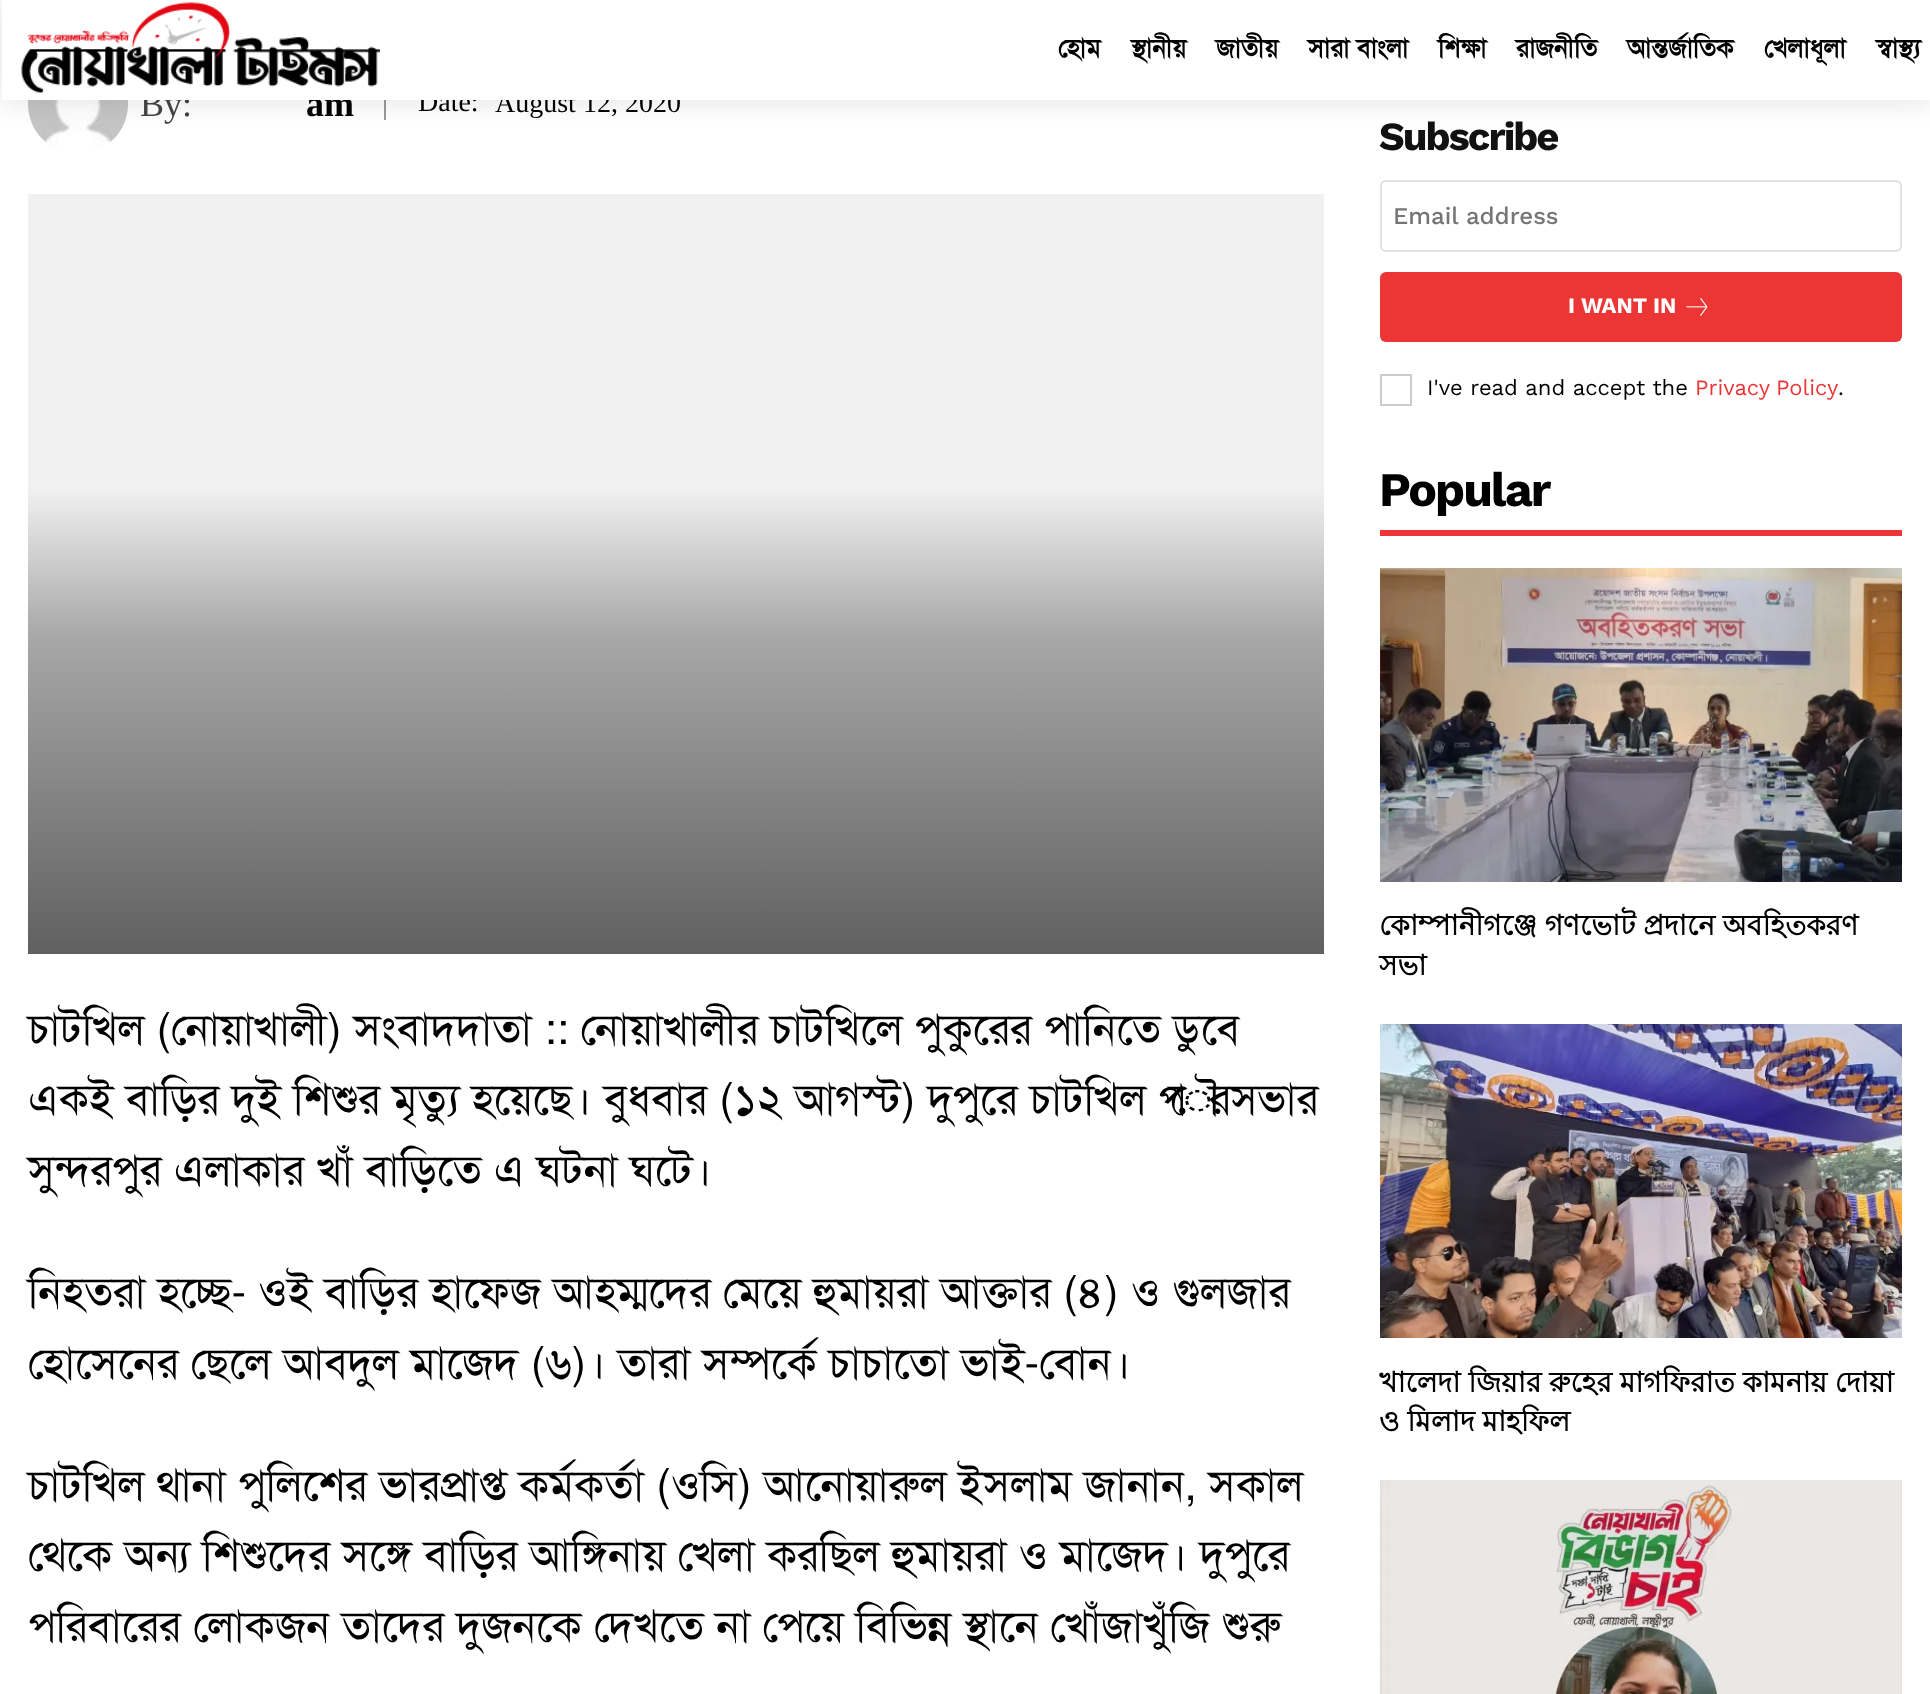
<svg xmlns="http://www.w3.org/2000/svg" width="1930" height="1694">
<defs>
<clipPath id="clip1"><path d="M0 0h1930v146h-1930zm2 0h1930v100h-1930z" clip-rule="evenodd"/></clipPath>
<linearGradient id="g1" gradientUnits="userSpaceOnUse" x1="676" y1="954" x2="676" y2="194"><stop offset="0" stop-color="#606060"/><stop offset="0.42" stop-color="#a8a8a8"/><stop offset="0.61" stop-color="#f0f0f0"/><stop offset="1" stop-color="#f0f0f0"/></linearGradient>
</defs>
<rect width="100%" height="100%" fill="#fff"/>
<text x="140" y="116" style="font-family:Liberation Serif;font-size:36px;fill:#444">By:</text>
<text x="306" y="116" style="font-family:Liberation Serif;font-size:36px;font-weight:bold;fill:#000">am</text>
<text x="418" y="111" style="font-family:Liberation Serif;font-size:28px;fill:#000">Date:</text>
<text x="495" y="112" style="font-family:Liberation Serif;font-size:28px;fill:#000">August 12, 2020</text>
<rect x="141" y="92" width="539" height="8" fill="#fff"/>
<image x="21" y="2" width="359" height="91" href="media/1.png"/>
<image x="28" y="100" width="100" height="47" href="media/2.png"/>
<rect x="384" y="100" width="2" height="20" fill="#999"/>
<g clip-path="url(#clip1)">
<rect x="2" width="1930" height="100" fill="#0000001f" filter="blur(15px)"/>
</g>
<text x="1058" y="57" style="font-family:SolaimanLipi;font-size:26px;font-weight:bold;fill:#000">হোম</text>
<text x="1131" y="57" style="font-family:SolaimanLipi;font-size:26px;font-weight:bold;fill:#000">স্থানীয়</text>
<text x="1216" y="57" style="font-family:SolaimanLipi;font-size:26px;font-weight:bold;fill:#000">জাতীয়</text>
<text x="1308" y="57" style="font-family:SolaimanLipi;font-size:26px;font-weight:bold;fill:#000">সারা বাংলা</text>
<text x="1438" y="57" style="font-family:SolaimanLipi;font-size:26px;font-weight:bold;fill:#000">শিক্ষা</text>
<text x="1516" y="57" style="font-family:SolaimanLipi;font-size:26px;font-weight:bold;fill:#000">রাজনীতি</text>
<text x="1627" y="57" style="font-family:SolaimanLipi;font-size:26px;font-weight:bold;fill:#000">আন্তর্জাতিক</text>
<text x="1764" y="57" style="font-family:SolaimanLipi;font-size:26px;font-weight:bold;fill:#000">খেলাধূলা</text>
<text x="1876" y="57" style="font-family:SolaimanLipi;font-size:26px;font-weight:bold;fill:#000">স্বাস্থ্য</text>
<rect x="28" y="194" width="1296" height="760" fill="url(#g1)"/>
<text x="28" y="1044" style="font-family:SolaimanLipi;font-size:44px;fill:#000">চাটখিল (নোয়াখালী) সংবাদদাতা :: নোয়াখালীর চাটখিলে পুকুরের পানিতে ডুবে</text>
<text x="28" y="1114" style="font-family:SolaimanLipi;font-size:44px;fill:#000">একই বাড়ির দুই শিশুর মৃত্যু হয়েছে। বুধবার (১২ আগস্ট) দুপুরে চাটখিল পৌরসভার</text>
<text x="28" y="1185" style="font-family:SolaimanLipi;font-size:44px;fill:#000">সুন্দরপুর এলাকার খাঁ বাড়িতে এ ঘটনা ঘটে।</text>
<text x="28" y="1307" style="font-family:SolaimanLipi;font-size:44px;fill:#000">নিহতরা হচ্ছে- ওই বাড়ির হাফেজ আহম্মদের মেয়ে হুমায়রা আক্তার (৪) ও গুলজার</text>
<text x="28" y="1378" style="font-family:SolaimanLipi;font-size:44px;fill:#000">হোসেনের ছেলে আবদুল মাজেদ (৬)। তারা সম্পর্কে চাচাতো ভাই-বোন।</text>
<text x="28" y="1500" style="font-family:SolaimanLipi;font-size:44px;fill:#000">চাটখিল থানা পুলিশের ভারপ্রাপ্ত কর্মকর্তা (ওসি) আনোয়ারুল ইসলাম জানান, সকাল</text>
<text x="28" y="1570" style="font-family:SolaimanLipi;font-size:44px;fill:#000">থেকে অন্য শিশুদের সঙ্গে বাড়ির আঙ্গিনায় খেলা করছিল হুমায়রা ও মাজেদ। দুপুরে</text>
<text x="28" y="1641" style="font-family:SolaimanLipi;font-size:44px;fill:#000">পরিবারের লোকজন তাদের দুজনকে দেখতে না পেয়ে বিভিন্ন স্থানে খোঁজাখুঁজি শুরু</text>
<text x="1379" y="150" style="font-family:Work Sans;font-size:40px;font-weight:bold;letter-spacing:-2px;fill:#111">Subscribe</text>
<rect x="1381" y="181" width="520" height="70" rx="5" fill="none" stroke="#e1e1e1" stroke-width="2"/>
<text x="1393" y="224" style="font-family:Work Sans;font-size:24px;font-weight:500;fill:#757575">Email address</text>
<rect x="1380" y="272" width="522" height="70" rx="6" fill="#ec3535"/>
<text x="1568" y="313" style="font-family:Work Sans;font-size:22px;font-weight:bold;fill:#fff">I WANT IN</text>
<image x="1686" y="298" width="22" height="18" href="media/3.png"/>
<rect x="1381" y="375" width="30" height="30" fill="none" stroke="#ccc" stroke-width="2"/>
<text x="1427" y="395" style="font-family:Work Sans;font-size:22px;fill:#000">I've read and accept the</text>
<text x="1695" y="395" word-spacing="-1" style="font-family:Work Sans;font-size:22px;fill:#ec3535">Privacy Policy</text>
<text x="1838" y="395" style="font-family:Work Sans;font-size:22px;fill:#000">.</text>
<rect x="1380" y="530" width="522" height="6" fill="#ec3535"/>
<text x="1379" y="506" style="font-family:Work Sans;font-size:48px;font-weight:bold;letter-spacing:-2px;fill:#000">Popular</text>
<image x="1380" y="568" width="522" height="314" href="media/4.png"/>
<text x="1379" y="935" style="font-family:Lohit Bengali;font-size:28px;font-weight:bold;fill:#000">কোম্পানীগঞ্জে গণভোট প্রদানে অবহিতকরণ</text>
<text x="1379" y="975" style="font-family:Lohit Bengali;font-size:28px;font-weight:bold;fill:#000">সভা</text>
<image x="1380" y="1024" width="522" height="314" href="media/5.png"/>
<text x="1379" y="1392" style="font-family:Lohit Bengali;font-size:28px;font-weight:bold;fill:#000">খালেদা জিয়ার রুহের মাগফিরাত কামনায় দোয়া</text>
<text x="1379" y="1431" style="font-family:Lohit Bengali;font-size:28px;font-weight:bold;fill:#000">ও মিলাদ মাহফিল</text>
<image x="1380" y="1480" width="522" height="214" href="media/6.png"/>
</svg>
